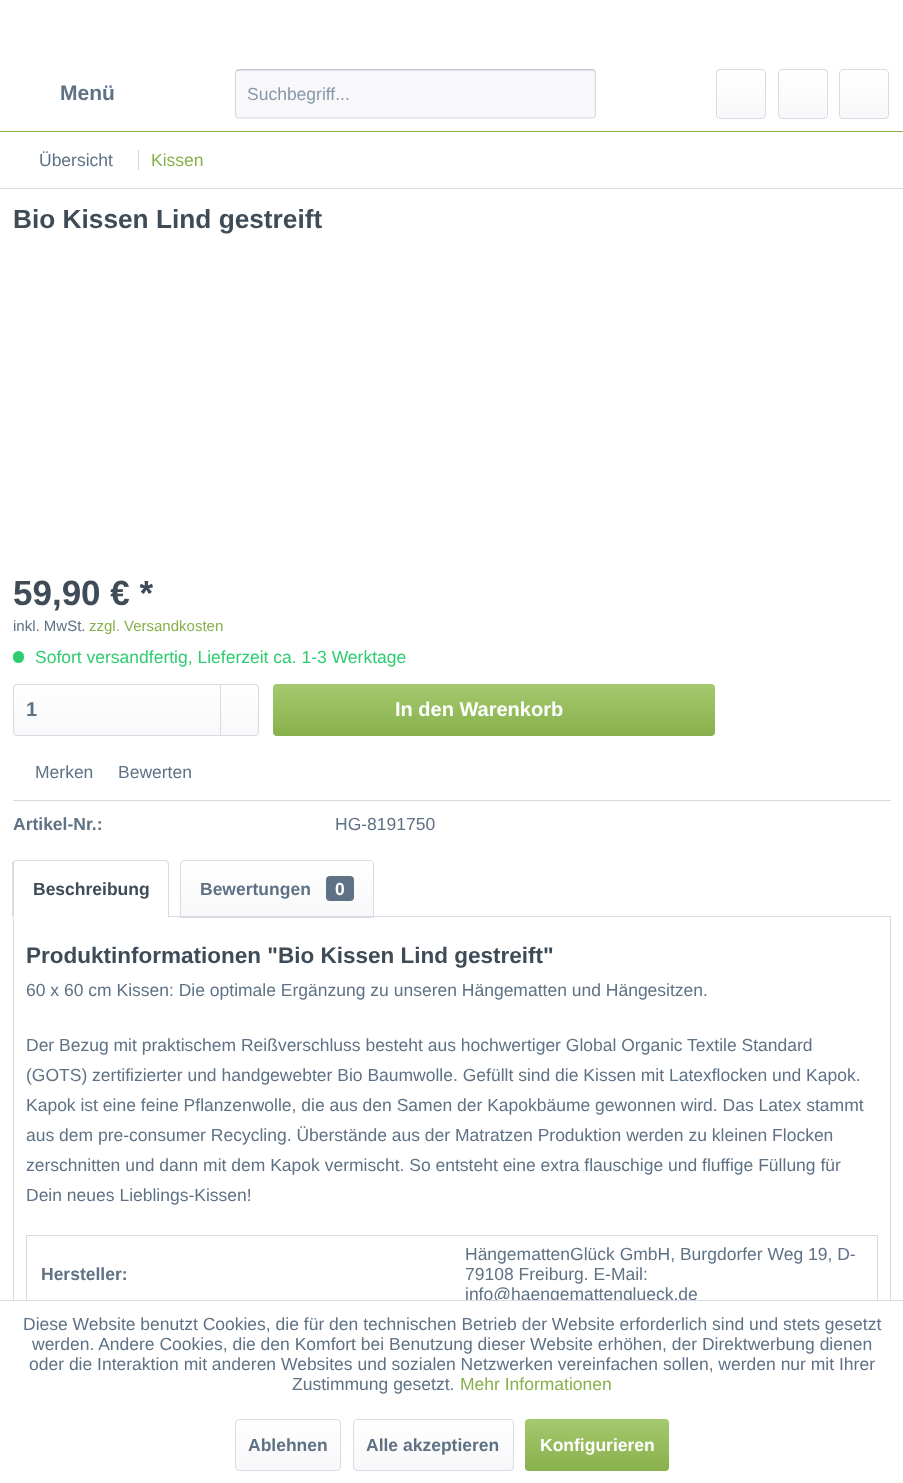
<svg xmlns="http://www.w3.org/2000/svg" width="903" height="1483">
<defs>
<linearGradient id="g1" gradientUnits="userSpaceOnUse" x1="741" y1="70" x2="741" y2="118"><stop offset="0" stop-color="#fff"/><stop offset="1" stop-color="#f8f8fa"/></linearGradient>
<linearGradient id="g2" gradientUnits="userSpaceOnUse" x1="803" y1="70" x2="803" y2="118"><stop offset="0" stop-color="#fff"/><stop offset="1" stop-color="#f8f8fa"/></linearGradient>
<linearGradient id="g3" gradientUnits="userSpaceOnUse" x1="864" y1="70" x2="864" y2="118"><stop offset="0" stop-color="#fff"/><stop offset="1" stop-color="#f8f8fa"/></linearGradient>
<linearGradient id="g4" gradientUnits="userSpaceOnUse" x1="136" y1="685" x2="136" y2="735"><stop offset="0" stop-color="#fff"/><stop offset="1" stop-color="#f8f8fa"/></linearGradient>
<linearGradient id="g5" gradientUnits="userSpaceOnUse" x1="494" y1="684" x2="494" y2="736"><stop offset="0" stop-color="#a5c96f"/><stop offset="1" stop-color="#88b04b"/></linearGradient>
<linearGradient id="g6" gradientUnits="userSpaceOnUse" x1="277" y1="861" x2="277" y2="916"><stop offset="0" stop-color="#fff"/><stop offset="1" stop-color="#f8f8fa"/></linearGradient>
<linearGradient id="g7" gradientUnits="userSpaceOnUse" x1="288" y1="1420" x2="288" y2="1470"><stop offset="0" stop-color="#fff"/><stop offset="1" stop-color="#f8f8fa"/></linearGradient>
<linearGradient id="g8" gradientUnits="userSpaceOnUse" x1="433" y1="1420" x2="433" y2="1470"><stop offset="0" stop-color="#fff"/><stop offset="1" stop-color="#f8f8fa"/></linearGradient>
<linearGradient id="g9" gradientUnits="userSpaceOnUse" x1="597" y1="1419" x2="597" y2="1471"><stop offset="0" stop-color="#a5c96f"/><stop offset="1" stop-color="#88b04b"/></linearGradient>
</defs>
<rect width="100%" height="100%" fill="#fff"/>
<rect y="131" width="903" height="1" fill="#88b04b"/>
<text x="60" y="100" style="font-family:Liberation Sans;font-size:21px;font-weight:bold;fill:#5f7285">Menü</text>
<rect x="235" y="69" width="361" height="50" rx="4" fill="#f8f8fa"/>
<path d="M239 71h353c2 0 3 1 3 3v-3l-3-1h-354c-2 0-2 2-2 4c0-2 1-3 3-3z" fill="#dadae5"/>
<path d="M236.5 70.5l2.5-1h354.5l1 1" fill="none" stroke="#cbcbdb" stroke-width="1.2"/>
<path d="M594.5 70.5l1 2v42.5l-1 2l-2 1h-353.5l-2.5-1l-1-2v-42.5l1-2" fill="none" stroke="#dadae5" stroke-width="1.2"/>
<text x="247" y="100" style="font-family:Liberation Sans;font-size:17.5px;fill:#8798a9">Suchbegriff...</text>
<rect x="718" y="70" width="47" height="48" rx="2.5" fill="url(#g1)"/>
<rect x="716.5" y="69.5" width="49" height="49" rx="3.5" fill="none" stroke="#dadae5"/>
<rect x="779" y="70" width="47" height="48" rx="2.5" fill="url(#g2)"/>
<rect x="778.5" y="69.5" width="49" height="49" rx="3.5" fill="none" stroke="#dadae5"/>
<rect x="840" y="70" width="48" height="48" rx="2.5" fill="url(#g3)"/>
<rect x="839.5" y="69.5" width="49" height="49" rx="3.5" fill="none" stroke="#dadae5"/>
<rect y="188" width="903" height="1" fill="#dadae5"/>
<text x="39" y="166" style="font-family:Liberation Sans;font-size:17.5px;fill:#5f7285">Übersicht</text>
<rect x="138" y="150" width="1" height="20" fill="#dadae5"/>
<text x="151" y="166" style="font-family:Liberation Sans;font-size:17.5px;fill:#88b04b">Kissen</text>
<text x="13" y="228" style="font-family:Liberation Sans;font-size:26.25px;font-weight:bold;fill:#3f4c58">Bio Kissen Lind gestreift</text>
<text x="13" y="605" style="font-family:Liberation Sans;font-size:35px;font-weight:bold;fill:#3f4c58">59,90 € *</text>
<text x="13" y="631" style="font-family:Liberation Sans;font-size:15px;fill:#5f7285">inkl. MwSt.</text>
<text x="89" y="631" style="font-family:Liberation Sans;font-size:15px;fill:#88b04b">zzgl. Versandkosten</text>
<rect x="13" y="651" width="11" height="12" rx="5.5" fill="#2ecc71"/>
<text x="35" y="663" style="font-family:Liberation Sans;font-size:17.5px;fill:#2ecc71">Sofort versandfertig, Lieferzeit ca. 1-3 Werktage</text>
<rect x="14" y="685" width="244" height="50" rx="2.5" fill="url(#g4)"/>
<rect x="13.5" y="684.5" width="245" height="51" rx="3.5" fill="none" stroke="#dadae5"/>
<text x="26" y="716" style="font-family:Liberation Sans;font-size:20px;font-weight:bold;fill:#5f7285">1</text>
<rect x="220" y="685" width="1" height="50" fill="#dadae5"/>
<rect x="273" y="684" width="442" height="52" rx="4" fill="url(#g5)"/>
<text x="395" y="716" style="font-family:Liberation Sans;font-size:20px;font-weight:bold;fill:#fff">In den Warenkorb</text>
<rect x="13" y="800" width="878" height="1" fill="#dadae5"/>
<text x="35" y="778" style="font-family:Liberation Sans;font-size:17.5px;fill:#5f7285">Merken</text>
<text x="118" y="778" style="font-family:Liberation Sans;font-size:17.5px;fill:#5f7285">Bewerten</text>
<text x="13" y="830" style="font-family:Liberation Sans;font-size:17.5px;font-weight:bold;fill:#5f7285">Artikel-Nr.:</text>
<text x="335" y="830" style="font-family:Liberation Sans;font-size:17.5px;fill:#5f7285">HG-8191750</text>
<rect x="13.5" y="916.5" width="877" height="494" fill="none" stroke="#dadae5"/>
<path d="M17 860h148c2 0 4 2 4 4v54h-156v-54c0-2 2-4 4-4z" fill="#fff"/>
<path d="M16 860l-2 1v1l2-1h149l2 1l1-1l-3-1z" fill="#dadae5"/>
<path d="M168 861l1 2v55l-2-2h1v-52l-1-2z" fill="#dadae5"/>
<path d="M169 918l-2-2h-153l-2 2z" fill="#fff"/>
<path d="M12 918v-56l2-1v1v2v52z" fill="#dadae5"/>
<text x="33" y="895" style="font-family:Liberation Sans;font-size:17.5px;font-weight:bold;fill:#3f4c58">Beschreibung</text>
<path d="M183.5 861h187c1.5 0 2.5 1 2.5 2.5v52.5h-192v-52.5c0-1.5 1-2.5 2.5-2.5z" fill="url(#g6)"/>
<path d="M184 860.5h186c2 0 3.5 1.5 3.5 3.5v53.5h-193v-53.5c0-2 1.5-3.5 3.5-3.5z" fill="none" stroke="#dadae5"/>
<text x="200" y="895" style="font-family:Liberation Sans;font-size:17.5px;font-weight:bold;fill:#5f7285">Bewertungen</text>
<rect x="326" y="876" width="28" height="25" rx="4" fill="#5f7285"/>
<text x="335" y="895" style="font-family:Liberation Sans;font-size:17.5px;font-weight:bold;fill:#fff">0</text>
<text x="26" y="963" style="font-family:Liberation Sans;font-size:22.5px;font-weight:bold;fill:#3f4c58">Produktinformationen "Bio Kissen Lind gestreift"</text>
<text x="26" y="996" style="font-family:Liberation Sans;font-size:17.5px;fill:#5f7285">60 x 60 cm Kissen: Die optimale Ergänzung zu unseren Hängematten und Hängesitzen.</text>
<text x="26" y="1051" style="font-family:Liberation Sans;font-size:17.5px;fill:#5f7285">Der Bezug mit praktischem Reißverschluss besteht aus hochwertiger Global Organic Textile Standard</text>
<text x="26" y="1081" style="font-family:Liberation Sans;font-size:17.5px;fill:#5f7285">(GOTS) zertifizierter und handgewebter Bio Baumwolle. Gefüllt sind die Kissen mit Latexflocken und Kapok.</text>
<text x="26" y="1111" style="font-family:Liberation Sans;font-size:17.5px;fill:#5f7285">Kapok ist eine feine Pflanzenwolle, die aus den Samen der Kapokbäume gewonnen wird. Das Latex stammt</text>
<text x="26" y="1141" style="font-family:Liberation Sans;font-size:17.5px;fill:#5f7285">aus dem pre-consumer Recycling. Überstände aus der Matratzen Produktion werden zu kleinen Flocken</text>
<text x="26" y="1171" style="font-family:Liberation Sans;font-size:17.5px;fill:#5f7285">zerschnitten und dann mit dem Kapok vermischt. So entsteht eine extra flauschige und fluffige Füllung für</text>
<text x="26" y="1201" style="font-family:Liberation Sans;font-size:17.5px;fill:#5f7285">Dein neues Lieblings-Kissen!</text>
<rect x="26.5" y="1235.5" width="851" height="77" fill="none" stroke="#dadae5"/>
<text x="41" y="1280" style="font-family:Liberation Sans;font-size:17.5px;font-weight:bold;fill:#5f7285">Hersteller:</text>
<text x="465" y="1260" style="font-family:Liberation Sans;font-size:17.5px;fill:#5f7285">HängemattenGlück GmbH, Burgdorfer Weg 19, D-</text>
<text x="465" y="1280" style="font-family:Liberation Sans;font-size:17.5px;fill:#5f7285">79108 Freiburg. E-Mail:</text>
<text x="465" y="1300" style="font-family:Liberation Sans;font-size:17.5px;fill:#5f7285">info@haengemattenglueck.de</text>
<rect x="13" y="1301" width="878" height="110" fill="#fff"/>
<rect y="1300" width="903" height="1" fill="#dadae5"/>
<text x="23" y="1330" style="font-family:Liberation Sans;font-size:17.5px;fill:#5f7285">Diese Website benutzt Cookies, die für den technischen Betrieb der Website erforderlich sind und stets gesetzt</text>
<text x="32" y="1350" style="font-family:Liberation Sans;font-size:17.5px;fill:#5f7285">werden. Andere Cookies, die den Komfort bei Benutzung dieser Website erhöhen, der Direktwerbung dienen</text>
<text x="29" y="1370" style="font-family:Liberation Sans;font-size:17.5px;fill:#5f7285">oder die Interaktion mit anderen Websites und sozialen Netzwerken vereinfachen sollen, werden nur mit Ihrer</text>
<text x="292" y="1390" style="font-family:Liberation Sans;font-size:17.5px;fill:#5f7285">Zustimmung gesetzt.</text>
<text x="460" y="1390" style="font-family:Liberation Sans;font-size:17.5px;fill:#88b04b">Mehr Informationen</text>
<rect x="236" y="1420" width="104" height="50" rx="2.5" fill="url(#g7)"/>
<rect x="235.5" y="1419.5" width="105" height="51" rx="3.5" fill="none" stroke="#dadae5"/>
<text x="248" y="1451" style="font-family:Liberation Sans;font-size:17.5px;font-weight:bold;fill:#5f7285">Ablehnen</text>
<rect x="354" y="1420" width="159" height="50" rx="2.5" fill="url(#g8)"/>
<rect x="353.5" y="1419.5" width="160" height="51" rx="3.5" fill="none" stroke="#dadae5"/>
<text x="366" y="1451" style="font-family:Liberation Sans;font-size:17.5px;font-weight:bold;fill:#5f7285">Alle akzeptieren</text>
<rect x="525" y="1419" width="144" height="52" rx="4" fill="url(#g9)"/>
<text x="540" y="1451" style="font-family:Liberation Sans;font-size:17.5px;font-weight:bold;fill:#fff">Konfigurieren</text>
</svg>
